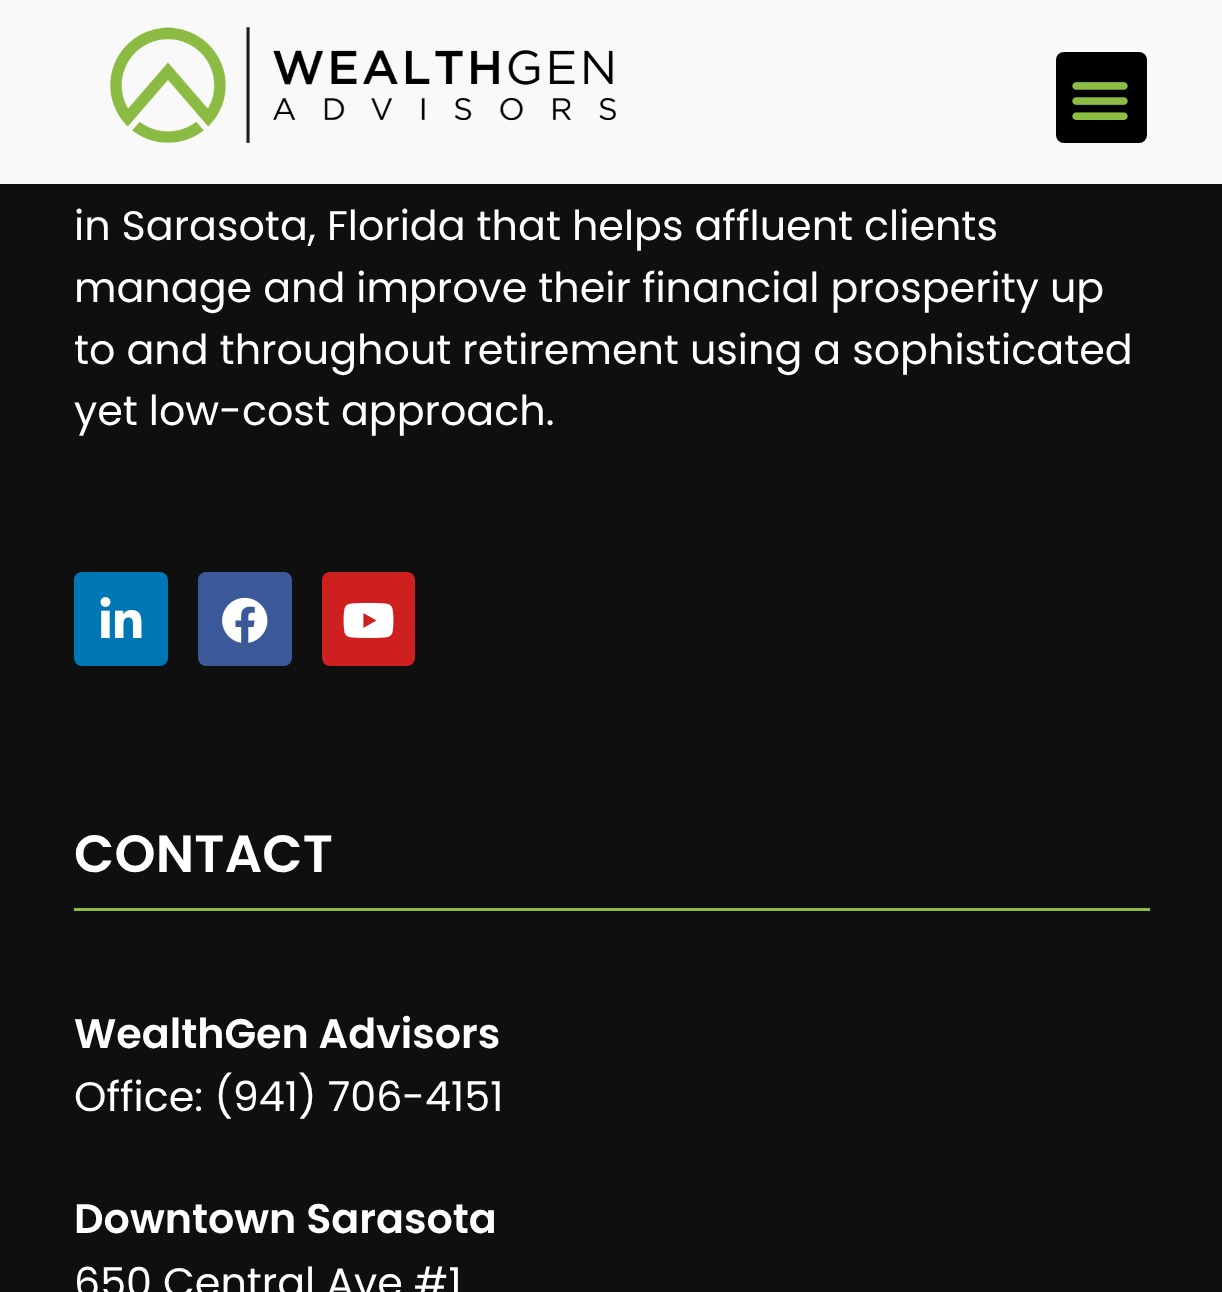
<svg xmlns="http://www.w3.org/2000/svg" width="1222" height="1292">
<rect width="100%" height="100%" fill="#0f0f0f"/>
<rect width="1222" height="184" fill="#f9f9f9"/>
<image x="110" y="27" width="506" height="116" href="media/1.png"/>
<rect x="1056" y="52" width="91" height="91" rx="8" fill="#000"/>
<image x="1072" y="82" width="56" height="38" href="media/2.png"/>
<text x="74" y="240" style="font-family:Poppins;font-size:41.25px;fill:#fff">in Sarasota, Florida that helps affluent clients</text>
<text x="74" y="302" style="font-family:Poppins;font-size:41.25px;fill:#fff">manage and improve their financial prosperity up</text>
<text x="74" y="364" style="font-family:Poppins;font-size:41.25px;fill:#fff">to and throughout retirement using a sophisticated</text>
<text x="74" y="425" style="font-family:Poppins;font-size:41.25px;fill:#fff">yet low-cost approach.</text>
<rect x="74" y="572" width="94" height="94" rx="8" fill="#0077b5"/>
<image x="100" y="597" width="42" height="41" href="media/3.png"/>
<rect x="198" y="572" width="94" height="94" rx="8" fill="#3b5998"/>
<image x="222" y="597" width="46" height="46" href="media/4.png"/>
<rect x="322" y="572" width="93" height="94" rx="8" fill="#cd201f"/>
<image x="343" y="602" width="51" height="36" href="media/5.png"/>
<text x="74" y="872" style="font-family:Poppins;font-size:52.25px;font-weight:600;letter-spacing:0.25px;fill:#fff">CONTACT</text>
<rect x="74" y="908" width="1076" height="3" fill="#8cbc44"/>
<text x="74" y="1048" style="font-family:Poppins;font-size:41.25px;font-weight:600;fill:#fff">WealthGen Advisors</text>
<text x="74" y="1111" style="font-family:Poppins;font-size:41.25px;fill:#fff">Office: (941) 706-4151</text>
<text x="74" y="1233" style="font-family:Poppins;font-size:41.25px;font-weight:600;fill:#fff">Downtown Sarasota</text>
<text x="74" y="1297" style="font-family:Poppins;font-size:41.25px;fill:#fff">650 Central Ave #1</text>
</svg>
